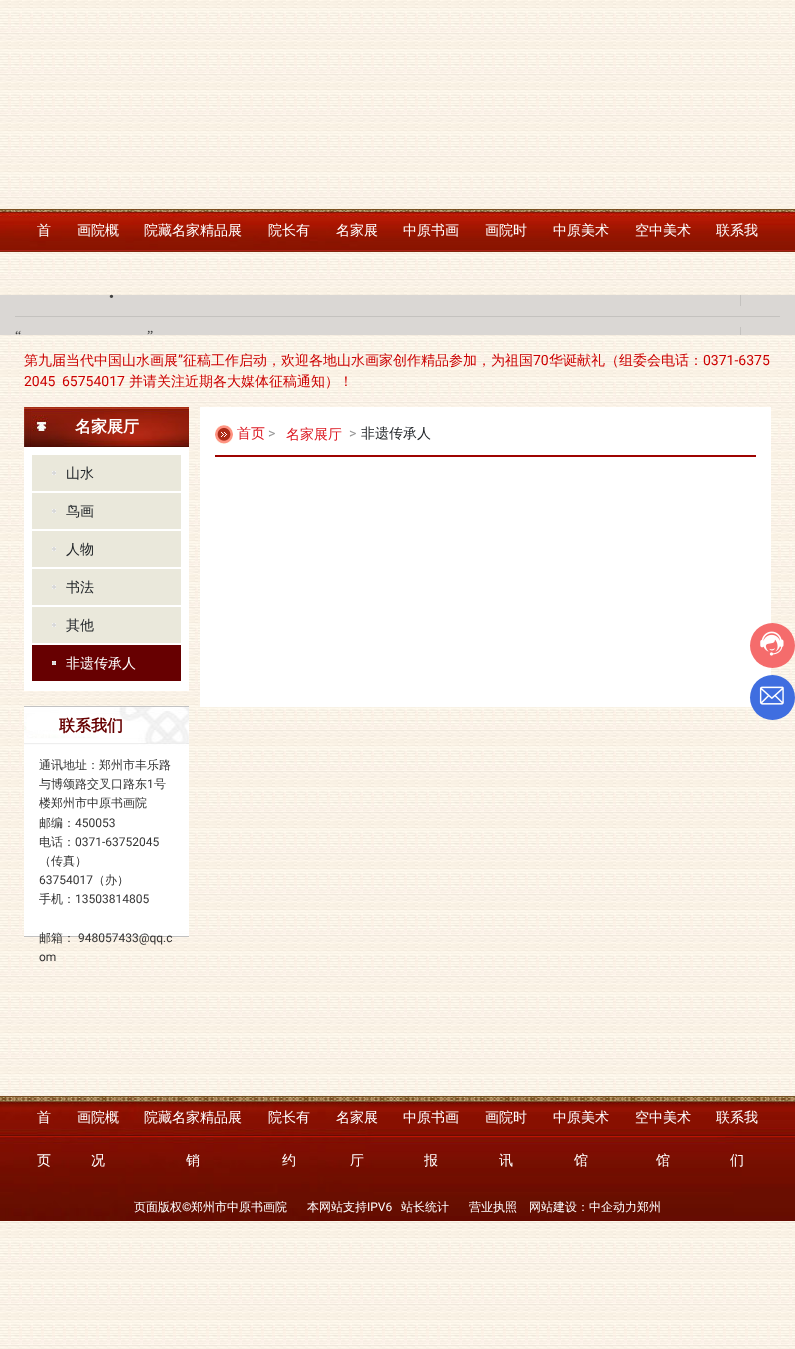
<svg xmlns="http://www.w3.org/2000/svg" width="795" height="1349">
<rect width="100%" height="100%" fill="#fff"/>
<image x="0" y="0" width="795" height="1349" href="media/1.png"/>
<image x="0" y="209" width="795" height="43" href="media/2.png"/>
<text x="37" y="235" style="font-family:WenQuanYi Zen Hei;font-size:14px;font-weight:500;fill:#fff">首</text>
<text x="77" y="235" style="font-family:WenQuanYi Zen Hei;font-size:14px;font-weight:500;fill:#fff">画院概</text>
<text x="144" y="235" style="font-family:WenQuanYi Zen Hei;font-size:14px;font-weight:500;fill:#fff">院藏名家精品展</text>
<text x="268" y="235" style="font-family:WenQuanYi Zen Hei;font-size:14px;font-weight:500;fill:#fff">院长有</text>
<text x="336" y="235" style="font-family:WenQuanYi Zen Hei;font-size:14px;font-weight:500;fill:#fff">名家展</text>
<text x="403" y="235" style="font-family:WenQuanYi Zen Hei;font-size:14px;font-weight:500;fill:#fff">中原书画</text>
<text x="485" y="235" style="font-family:WenQuanYi Zen Hei;font-size:14px;font-weight:500;fill:#fff">画院时</text>
<text x="553" y="235" style="font-family:WenQuanYi Zen Hei;font-size:14px;font-weight:500;fill:#fff">中原美术</text>
<text x="635" y="235" style="font-family:WenQuanYi Zen Hei;font-size:14px;font-weight:500;fill:#fff">空中美术</text>
<text x="716" y="235" style="font-family:WenQuanYi Zen Hei;font-size:14px;font-weight:500;fill:#fff">联系我</text>
<rect y="295" width="795" height="40" fill="#dad7d4"/>
<rect x="15" y="316" width="765" height="1" fill="#c4c2bf"/>
<text x="109" y="301" style="font-family:Liberation Serif;font-size:14px;fill:#414140">•</text>
<rect x="740" y="295" width="1" height="11" fill="#c4c2bf"/>
<text x="15" y="340" style="font-family:Liberation Serif;font-size:14px;fill:#414140">“</text>
<text x="147" y="340" style="font-family:Liberation Serif;font-size:14px;fill:#414140">”</text>
<rect x="740" y="327" width="1" height="8" fill="#c4c2bf"/>
<text x="24" y="365" style="font-family:WenQuanYi Zen Hei;font-size:14px;font-weight:500;fill:#c00">第九届当代中国山水画展</text>
<text x="178" y="365" style="font-family:Roboto;font-size:14px;fill:#c00">”</text>
<text x="183" y="365" style="font-family:WenQuanYi Zen Hei;font-size:14px;font-weight:500;fill:#c00">征稿工作启动，欢迎各地山水画家创作精品参加，为祖国</text>
<text x="533" y="365" style="font-family:Roboto;font-size:14px;fill:#c00">70</text>
<text x="549" y="365" style="font-family:WenQuanYi Zen Hei;font-size:14px;font-weight:500;fill:#c00">华诞献礼（组委会电话：</text>
<text x="703" y="365" style="font-family:Roboto;font-size:14px;fill:#c00">0371-6375</text>
<text x="24" y="386" style="font-family:Roboto;font-size:14px;fill:#c00">2045</text>
<text x="62" y="386" style="font-family:Roboto;font-size:14px;fill:#c00">65754017</text>
<text x="129" y="386" style="font-family:WenQuanYi Zen Hei;font-size:14px;font-weight:500;fill:#c00">并请关注近期各大媒体征稿通知）！</text>
<image x="24" y="407" width="165" height="40" href="media/3.png"/>
<text x="75" y="432" style="font-family:WenQuanYi Zen Hei;font-size:16px;font-weight:bold;fill:#fff">名家展厅</text>
<rect x="24" y="447" width="165" height="244" fill="#fff"/>
<rect x="32" y="455" width="149" height="36" fill="#eae8db"/>
<image x="52" y="471" width="4" height="4" href="media/4.png"/>
<text x="66" y="478" style="font-family:WenQuanYi Zen Hei;font-size:14px;font-weight:500;fill:#212529">山水</text>
<rect x="32" y="493" width="149" height="36" fill="#eae8db"/>
<image x="52" y="509" width="4" height="4" href="media/4.png"/>
<text x="66" y="516" style="font-family:WenQuanYi Zen Hei;font-size:14px;font-weight:500;fill:#212529">鸟画</text>
<rect x="32" y="531" width="149" height="36" fill="#eae8db"/>
<image x="52" y="547" width="4" height="4" href="media/4.png"/>
<text x="66" y="554" style="font-family:WenQuanYi Zen Hei;font-size:14px;font-weight:500;fill:#212529">人物</text>
<rect x="32" y="569" width="149" height="36" fill="#eae8db"/>
<image x="52" y="585" width="4" height="4" href="media/4.png"/>
<text x="66" y="592" style="font-family:WenQuanYi Zen Hei;font-size:14px;font-weight:500;fill:#212529">书法</text>
<rect x="32" y="607" width="149" height="36" fill="#eae8db"/>
<image x="52" y="623" width="4" height="4" href="media/4.png"/>
<text x="66" y="630" style="font-family:WenQuanYi Zen Hei;font-size:14px;font-weight:500;fill:#212529">其他</text>
<rect x="32" y="645" width="149" height="36" fill="#670001"/>
<image x="52" y="661" width="4" height="4" href="media/4.png"/>
<text x="66" y="668" style="font-family:WenQuanYi Zen Hei;font-size:14px;font-weight:500;fill:#fff">非遗传承人</text>
<image x="24" y="706" width="165" height="231" href="media/5.png"/>
<text x="59" y="731" style="font-family:WenQuanYi Zen Hei;font-size:16px;font-weight:bold;fill:#670001">联系我们</text>
<text x="39" y="769" style="font-family:WenQuanYi Zen Hei;font-size:12px;font-weight:500;fill:#333">通讯地址：郑州市丰乐路</text>
<text x="39" y="788" style="font-family:WenQuanYi Zen Hei;font-size:12px;font-weight:500;fill:#333">与博颂路交叉口路东</text>
<text x="147" y="788" style="font-family:Roboto;font-size:12px;fill:#333">1</text>
<text x="154" y="788" style="font-family:WenQuanYi Zen Hei;font-size:12px;font-weight:500;fill:#333">号</text>
<text x="39" y="807" style="font-family:WenQuanYi Zen Hei;font-size:12px;font-weight:500;fill:#333">楼郑州市中原书画院</text>
<text x="39" y="827" style="font-family:WenQuanYi Zen Hei;font-size:12px;font-weight:500;fill:#333">邮编：</text>
<text x="75" y="827" style="font-family:Roboto;font-size:12px;fill:#333">450053</text>
<text x="39" y="846" style="font-family:WenQuanYi Zen Hei;font-size:12px;font-weight:500;fill:#333">电话：</text>
<text x="75" y="846" style="font-family:Roboto;font-size:12px;fill:#333">0371-63752045</text>
<text x="39" y="865" style="font-family:WenQuanYi Zen Hei;font-size:12px;font-weight:500;fill:#333">（传真）</text>
<text x="39" y="884" style="font-family:Roboto;font-size:12px;fill:#333">63754017</text>
<text x="93" y="884" style="font-family:WenQuanYi Zen Hei;font-size:12px;font-weight:500;fill:#333">（办）</text>
<text x="39" y="903" style="font-family:WenQuanYi Zen Hei;font-size:12px;font-weight:500;fill:#333">手机：</text>
<text x="75" y="903" style="font-family:Roboto;font-size:12px;fill:#333">13503814805</text>
<text x="39" y="942" style="font-family:WenQuanYi Zen Hei;font-size:12px;font-weight:500;fill:#333">邮箱：</text>
<text x="78" y="942" style="font-family:Roboto;font-size:12px;fill:#333">948057433@qq.c</text>
<text x="39" y="961" style="font-family:Roboto;font-size:12px;fill:#333">om</text>
<rect x="200" y="407" width="571" height="300" fill="#fff"/>
<image x="215" y="425" width="18" height="19" href="media/6.png"/>
<text x="237" y="438" style="font-family:WenQuanYi Zen Hei;font-size:14px;font-weight:500;fill:#dc1822">首页</text>
<text x="268" y="438" style="font-family:Roboto;font-size:14px;fill:#999">&gt;</text>
<text x="286" y="439" style="font-family:WenQuanYi Zen Hei;font-size:14px;font-weight:500;fill:#dc1822">名家展厅</text>
<text x="349" y="438" style="font-family:Roboto;font-size:14px;fill:#999">&gt;</text>
<text x="361" y="438" style="font-family:WenQuanYi Zen Hei;font-size:14px;font-weight:500;fill:#212529">非遗传承人</text>
<rect x="215" y="455" width="541" height="2" fill="#9e0300"/>
<image x="0" y="1096" width="795" height="125" href="media/7.png"/>
<text x="37" y="1122" style="font-family:WenQuanYi Zen Hei;font-size:14px;font-weight:500;fill:#fff">首</text>
<text x="37" y="1165" style="font-family:WenQuanYi Zen Hei;font-size:14px;font-weight:500;fill:#fff">页</text>
<text x="77" y="1122" style="font-family:WenQuanYi Zen Hei;font-size:14px;font-weight:500;fill:#fff">画院概</text>
<text x="91" y="1165" style="font-family:WenQuanYi Zen Hei;font-size:14px;font-weight:500;fill:#fff">况</text>
<text x="144" y="1122" style="font-family:WenQuanYi Zen Hei;font-size:14px;font-weight:500;fill:#fff">院藏名家精品展</text>
<text x="186" y="1165" style="font-family:WenQuanYi Zen Hei;font-size:14px;font-weight:500;fill:#fff">销</text>
<text x="268" y="1122" style="font-family:WenQuanYi Zen Hei;font-size:14px;font-weight:500;fill:#fff">院长有</text>
<text x="282" y="1165" style="font-family:WenQuanYi Zen Hei;font-size:14px;font-weight:500;fill:#fff">约</text>
<text x="336" y="1122" style="font-family:WenQuanYi Zen Hei;font-size:14px;font-weight:500;fill:#fff">名家展</text>
<text x="350" y="1165" style="font-family:WenQuanYi Zen Hei;font-size:14px;font-weight:500;fill:#fff">厅</text>
<text x="403" y="1122" style="font-family:WenQuanYi Zen Hei;font-size:14px;font-weight:500;fill:#fff">中原书画</text>
<text x="424" y="1165" style="font-family:WenQuanYi Zen Hei;font-size:14px;font-weight:500;fill:#fff">报</text>
<text x="485" y="1122" style="font-family:WenQuanYi Zen Hei;font-size:14px;font-weight:500;fill:#fff">画院时</text>
<text x="499" y="1165" style="font-family:WenQuanYi Zen Hei;font-size:14px;font-weight:500;fill:#fff">讯</text>
<text x="553" y="1122" style="font-family:WenQuanYi Zen Hei;font-size:14px;font-weight:500;fill:#fff">中原美术</text>
<text x="574" y="1165" style="font-family:WenQuanYi Zen Hei;font-size:14px;font-weight:500;fill:#fff">馆</text>
<text x="635" y="1122" style="font-family:WenQuanYi Zen Hei;font-size:14px;font-weight:500;fill:#fff">空中美术</text>
<text x="656" y="1165" style="font-family:WenQuanYi Zen Hei;font-size:14px;font-weight:500;fill:#fff">馆</text>
<text x="716" y="1122" style="font-family:WenQuanYi Zen Hei;font-size:14px;font-weight:500;fill:#fff">联系我</text>
<text x="730" y="1165" style="font-family:WenQuanYi Zen Hei;font-size:14px;font-weight:500;fill:#fff">们</text>
<text x="134" y="1211" style="font-family:WenQuanYi Zen Hei;font-size:12px;font-weight:500;fill:#fff">页面版权</text>
<text x="182" y="1211" style="font-family:Roboto;font-size:12px;fill:#fff">©</text>
<text x="191" y="1211" style="font-family:WenQuanYi Zen Hei;font-size:12px;font-weight:500;fill:#fff">郑州市中原书画院</text>
<text x="307" y="1211" style="font-family:WenQuanYi Zen Hei;font-size:12px;font-weight:500;fill:#fff">本网站支持</text>
<text x="367" y="1211" style="font-family:Roboto;font-size:12px;fill:#fff">IPV6</text>
<text x="401" y="1211" style="font-family:WenQuanYi Zen Hei;font-size:12px;font-weight:500;fill:#fff">站长统计</text>
<text x="469" y="1211" style="font-family:WenQuanYi Zen Hei;font-size:12px;font-weight:500;fill:#fff">营业执照</text>
<text x="529" y="1211" style="font-family:WenQuanYi Zen Hei;font-size:12px;font-weight:500;fill:#fff">网站建设：中企动力郑州</text>
<circle cx="772.5" cy="645.5" r="22.5" fill="#f56c6c"/>
<image x="760" y="631" width="24" height="25" href="media/8.png"/>
<circle cx="772.5" cy="697.5" r="22.5" fill="#3f6ee0"/>
<image x="759" y="686" width="25" height="19" href="media/9.png"/>
</svg>
